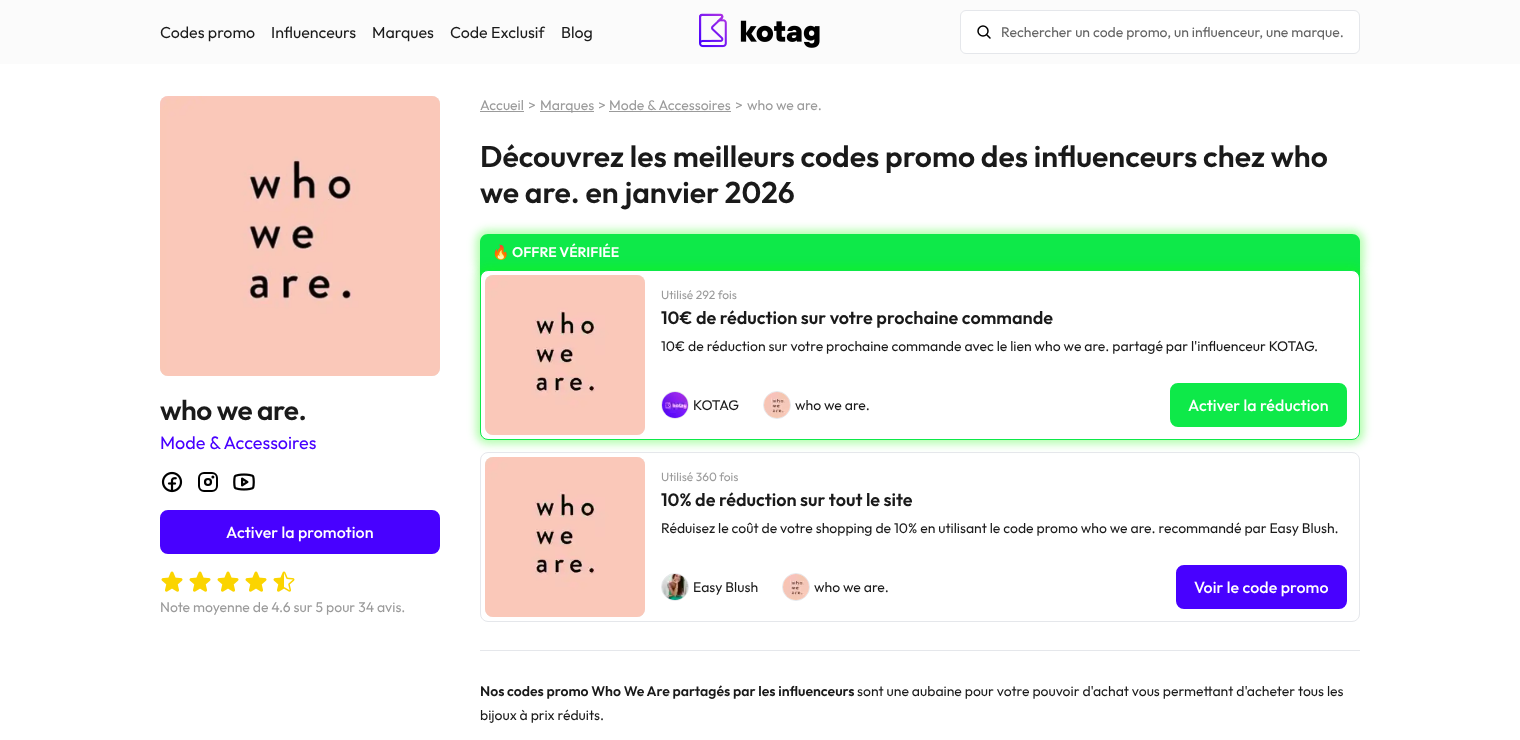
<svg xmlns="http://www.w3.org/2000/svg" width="1520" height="740">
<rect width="100%" height="100%" fill="#fff"/>
<rect width="1520" height="64" fill="#fbfbfb"/>
<text x="160" y="38" style="font-family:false;font-size:16px;fill:#1a1a1a">Codes promo</text>
<text x="271" y="38" style="font-family:false;font-size:16px;fill:#1a1a1a">Influenceurs</text>
<text x="372" y="38" style="font-family:false;font-size:16px;fill:#1a1a1a">Marques</text>
<text x="450" y="38" style="font-family:false;font-size:16px;fill:#1a1a1a">Code Exclusif</text>
<text x="561" y="38" style="font-family:false;font-size:16px;fill:#1a1a1a">Blog</text>
<image x="699" y="13" width="121" height="35" href="media/1.png"/>
<rect x="960.5" y="10.5" width="399" height="43" rx="5.5" fill="#fff" stroke="#e5e7eb"/>
<circle cx="983" cy="31" r="5" fill="none" stroke="#000" stroke-width="1.5"/>
<path d="M987 35l3 3" fill="none" stroke="#000" stroke-width="1.5" stroke-linecap="round" stroke-linejoin="round"/>
<text x="1001" y="37" style="font-family:false;font-size:14px;fill:#646464">Rechercher un code promo, un influenceur, une marque.</text>
<rect x="160" y="96" width="280" height="280" rx="8" fill="#e8e8e8"/>
<image x="160" y="96" width="280" height="280" href="media/2.png"/>
<text x="160" y="420" style="font-family:Outfit;font-size:28px;font-weight:600;letter-spacing:-0.5px;fill:#1a1a1a">who we are.</text>
<text x="160" y="449" style="font-family:false;font-size:18px;fill:#4801ff">Mode &amp; Accessoires</text>
<image x="161" y="471" width="22" height="22" href="media/3.png"/>
<circle cx="208" cy="482" r="3" fill="none" stroke="#000" stroke-width="2.2"/>
<rect x="199" y="473" width="18" height="18" rx="5" fill="none" stroke="#000" stroke-width="2"/>
<circle cx="212.9" cy="477.1" r="1.5" fill="#000"/>
<image x="233" y="473" width="22" height="18" href="media/4.png"/>
<rect x="161" y="511" width="278" height="42" rx="7" fill="#4801ff" stroke="#4801ff" stroke-width="2"/>
<text x="226" y="538" style="font-family:Outfit;font-size:16px;font-weight:500;letter-spacing:0.1px;fill:#fff">Activer la promotion</text>
<image x="161" y="571" width="22" height="21" href="media/5.png"/>
<image x="189" y="571" width="22" height="21" href="media/5.png"/>
<image x="217" y="571" width="22" height="21" href="media/5.png"/>
<image x="245" y="571" width="22" height="21" href="media/5.png"/>
<image x="273" y="571" width="22" height="21" href="media/6.png"/>
<text x="160" y="612" style="font-family:false;font-size:14px;fill:#9b9b9b">Note moyenne de 4.6 sur 5 pour 34 avis.</text>
<text x="480" y="110" style="font-family:false;font-size:14px;fill:#9b9b9b">Accueil</text>
<rect x="480" y="111" width="44" height="1" fill="#9b9b9b"/>
<text x="528" y="110" style="font-family:false;font-size:14px;fill:#9b9b9b">&gt;</text>
<rect x="540" y="111" width="54" height="1" fill="#9b9b9b"/>
<text x="540" y="110" style="font-family:false;font-size:14px;fill:#9b9b9b">Marques</text>
<text x="598" y="110" style="font-family:false;font-size:14px;fill:#9b9b9b">&gt;</text>
<text x="609" y="110" style="font-family:false;font-size:14px;fill:#9b9b9b">Mode &amp; Accessoires</text>
<rect x="609" y="111" width="122" height="1" fill="#9b9b9b"/>
<text x="735" y="110" style="font-family:false;font-size:14px;fill:#9b9b9b">&gt;</text>
<text x="747" y="110" style="font-family:false;font-size:14px;fill:#9b9b9b">who we are.</text>
<text x="480" y="167" style="font-family:Outfit;font-size:30px;font-weight:600;fill:#1a1a1a">Découvrez les meilleurs codes promo des influenceurs chez who</text>
<text x="480" y="203" style="font-family:Outfit;font-size:30px;font-weight:600;fill:#1a1a1a">we are. en janvier 2026</text>
<rect x="476" y="230" width="888" height="44" rx="12" fill="#0dfb004f" filter="blur(4px)"/>
<path d="M488 234h864c4.5 0 8 3.5 8 8v28h-880v-28c0-4.5 3.5-8 8-8z" fill="#0ee949"/>
<text x="492" y="257" style="font-family:Noto Color Emoji;font-size:14px;font-weight:bold;fill:#fff">🔥</text>
<text x="512" y="257" style="font-family:Outfit;font-size:14px;font-weight:600;fill:#fff">OFFRE VÉRIFIÉE</text>
<rect x="480" y="270" width="880" height="8" fill="#0ee949"/>
<rect x="476" y="266" width="888" height="178" rx="12" fill="#0dfb004f" filter="blur(4px)"/>
<rect x="480.5" y="270.5" width="879" height="169" rx="7.5" fill="#fff" stroke="#0ee949"/>
<rect x="485" y="275" width="160" height="160" rx="8" fill="#e8e8e8"/>
<image x="485" y="275" width="160" height="160" href="media/7.png"/>
<text x="661" y="299" style="font-family:false;font-size:12px;fill:#9b9b9b">Utilisé 292 fois</text>
<text x="661" y="324" style="font-family:Outfit;font-size:18px;font-weight:600;fill:#1a1a1a">10€ de réduction sur votre prochaine commande</text>
<text x="661" y="351" style="font-family:false;font-size:14px;fill:#1a1a1a">10€ de réduction sur votre prochaine commande avec le lien who we are. partagé par l'influenceur KOTAG.</text>
<circle cx="675" cy="405" r="13.5" fill="none" stroke="#e5e7eb"/>
<image x="662" y="392" width="26" height="26" href="media/8.png"/>
<text x="693" y="410" style="font-family:false;font-size:14px;fill:#1a1a1a">KOTAG</text>
<circle cx="777" cy="405" r="13.5" fill="none" stroke="#e5e7eb"/>
<image x="764" y="392" width="26" height="26" href="media/9.png"/>
<text x="795" y="410" style="font-family:false;font-size:14px;fill:#1a1a1a">who we are.</text>
<rect x="1171" y="384" width="175" height="42" rx="7" fill="#0ee949" stroke="#0ee949" stroke-width="2"/>
<text x="1188" y="411" style="font-family:Outfit;font-size:16px;font-weight:500;letter-spacing:0.1px;fill:#fff">Activer la réduction</text>
<rect x="480.5" y="452.5" width="879" height="169" rx="7.5" fill="none" stroke="#e5e7eb"/>
<rect x="485" y="457" width="160" height="160" rx="8" fill="#e8e8e8"/>
<image x="485" y="457" width="160" height="160" href="media/7.png"/>
<text x="661" y="481" style="font-family:false;font-size:12px;fill:#9b9b9b">Utilisé 360 fois</text>
<text x="661" y="506" style="font-family:Outfit;font-size:18px;font-weight:600;fill:#1a1a1a">10% de réduction sur tout le site</text>
<text x="661" y="533" style="font-family:false;font-size:14px;fill:#1a1a1a">Réduisez le coût de votre shopping de 10% en utilisant le code promo who we are. recommandé par Easy Blush.</text>
<circle cx="675" cy="587" r="13.5" fill="none" stroke="#e5e7eb"/>
<image x="662" y="574" width="26" height="26" href="media/10.png"/>
<text x="693" y="592" style="font-family:false;font-size:14px;fill:#1a1a1a">Easy Blush</text>
<circle cx="796" cy="587" r="13.5" fill="none" stroke="#e5e7eb"/>
<image x="783" y="574" width="26" height="26" href="media/11.png"/>
<text x="814" y="592" style="font-family:false;font-size:14px;fill:#1a1a1a">who we are.</text>
<rect x="1177" y="566" width="169" height="42" rx="7" fill="#4801ff" stroke="#4801ff" stroke-width="2"/>
<text x="1194" y="593" style="font-family:Outfit;font-size:16px;font-weight:500;letter-spacing:0.1px;fill:#fff">Voir le code promo</text>
<rect x="480" y="650" width="880" height="1" fill="#e5e7eb"/>
<text x="480" y="696" style="font-family:Outfit;font-size:14px;font-weight:600;fill:#1a1a1a">Nos codes promo Who We Are partagés par les influenceurs</text>
<text x="857" y="696" style="font-family:false;font-size:14px;fill:#1a1a1a">sont une aubaine pour votre pouvoir d'achat vous permettant d'acheter tous les</text>
<text x="480" y="720" style="font-family:false;font-size:14px;fill:#1a1a1a">bijoux à prix réduits.</text>
</svg>
